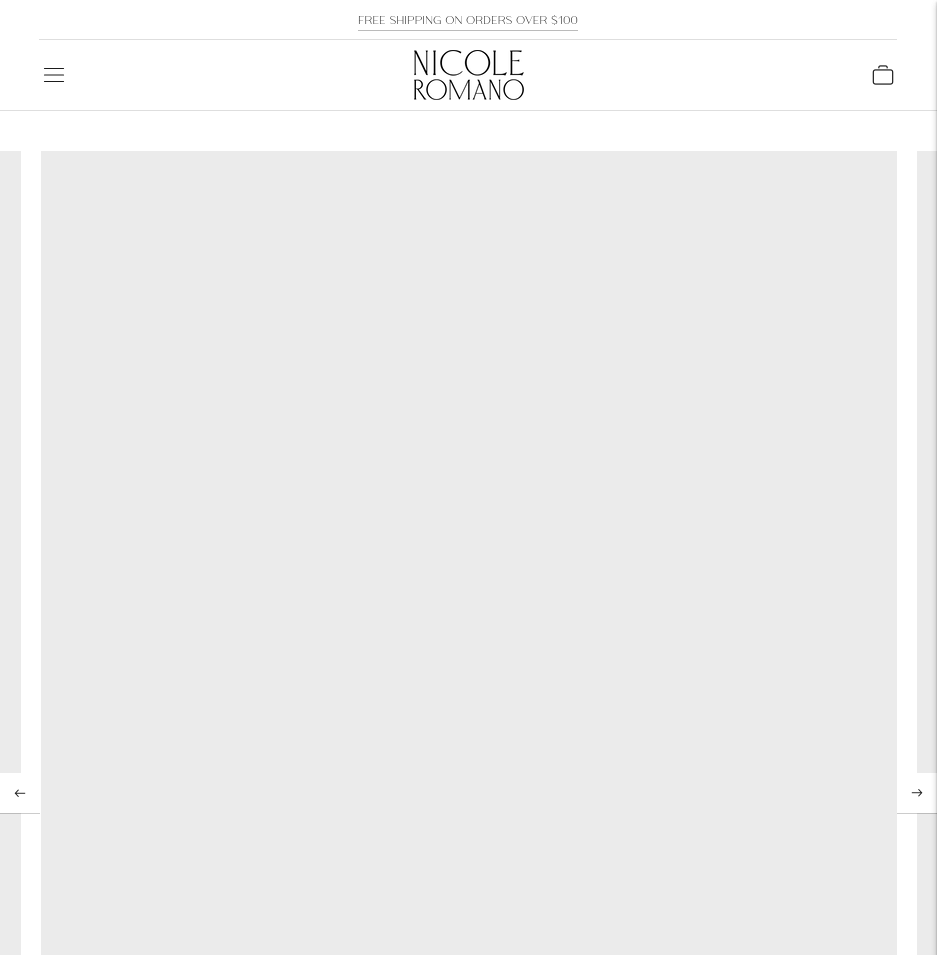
<svg xmlns="http://www.w3.org/2000/svg" width="937" height="955">
<rect width="100%" height="100%" fill="#fff"/>
<rect x="917" y="151" width="20" height="804" fill="#ebebeb"/>
<rect x="41" y="151" width="856" height="804" fill="#ebebeb"/>
<rect x="897" y="774" width="40" height="40" fill="#00000033" filter="blur(0.5px)"/>
<rect x="897" y="773" width="40" height="40" fill="#fff"/>
<rect y="110" width="937" height="1" fill="#dedede"/>
<rect x="937" y="4" width="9" height="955" fill="#0000001a" filter="blur(3px)"/>
<rect x="937" y="2" width="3" height="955" fill="#00000026" filter="blur(1px)"/>
<rect y="151" width="21" height="804" fill="#ebebeb"/>
<rect y="774" width="40" height="40" fill="#00000033" filter="blur(0.5px)"/>
<rect y="773" width="40" height="40" fill="#fff"/>
<image x="14" y="789" width="12" height="8" href="media/1.png"/>
<image x="911" y="789" width="12" height="8" href="media/2.png"/>
<text x="358" y="24" style="font-family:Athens;font-size:12px;font-weight:300;fill:#1b1b1b">FREE SHIPPING ON ORDERS OVER $100</text>
<rect x="358" y="30" width="220" height="1" fill="#bbb"/>
<rect x="39" y="39" width="858" height="1" fill="#dedede"/>
<path d="M44.5 75h19m-19-6.5h19m-19 13h19" fill="none" stroke="#1b1b1b" stroke-width="1.2" stroke-linecap="round" stroke-linejoin="round"/>
<image x="414" y="50" width="110" height="50" href="media/3.png"/>
<image x="872" y="65" width="22" height="20" href="media/4.png"/>
<rect x="937" y="4" width="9" height="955" fill="#0000001a" filter="blur(3px)"/>
<rect x="937" y="2" width="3" height="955" fill="#00000026" filter="blur(1px)"/>
</svg>
